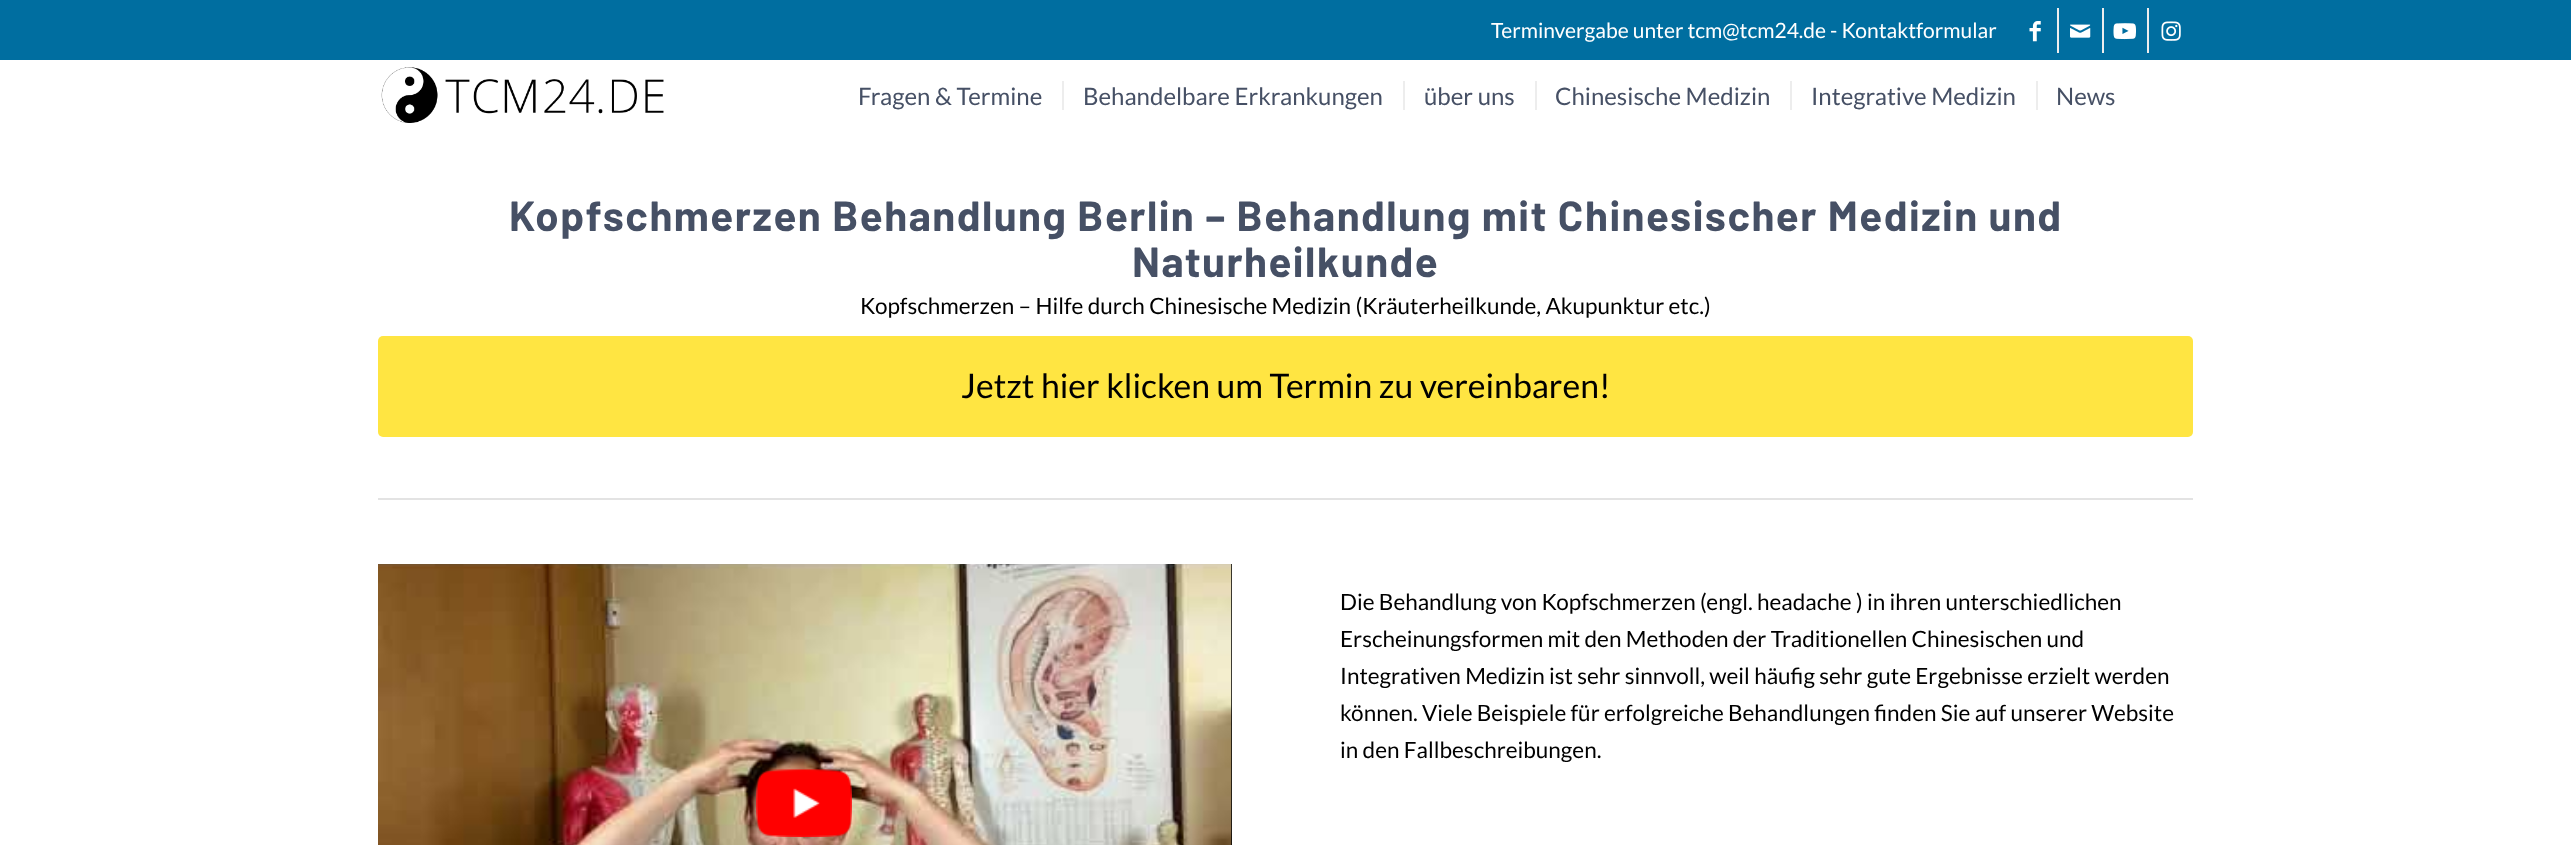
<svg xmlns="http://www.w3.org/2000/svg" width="2571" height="845">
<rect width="100%" height="100%" fill="#fff"/>
<rect width="2571" height="60" fill="#006ea0"/>
<text x="1491" y="38" style="font-family:Lato;font-size:21px;fill:#fff">Terminvergabe unter tcm@tcm24.de - Kontaktformular</text>
<rect x="2057" y="8" width="2" height="45" fill="#ededed"/>
<image x="2029" y="21" width="12" height="21" href="media/1.png"/>
<rect x="2102" y="8" width="2" height="45" fill="#ededed"/>
<image x="2070" y="24" width="21" height="14" href="media/2.png"/>
<rect x="2147" y="8" width="2" height="45" fill="#ededed"/>
<image x="2113" y="23" width="23" height="17" href="media/3.png"/>
<image x="2161" y="21" width="20" height="20" href="media/4.png"/>
<image x="381" y="67" width="283" height="56" href="media/5.png"/>
<text x="858" y="105" style="font-family:Lato;font-size:24px;fill:#465065">Fragen &amp; Termine</text>
<text x="1083" y="105" style="font-family:Lato;font-size:24px;fill:#465065">Behandelbare Erkrankungen</text>
<rect x="1062" y="81" width="2" height="29" fill="#ededed"/>
<text x="1424" y="105" style="font-family:Lato;font-size:24px;fill:#465065">über uns</text>
<rect x="1403" y="81" width="2" height="29" fill="#ededed"/>
<text x="1555" y="105" style="font-family:Lato;font-size:24px;fill:#465065">Chinesische Medizin</text>
<rect x="1535" y="81" width="2" height="29" fill="#ededed"/>
<text x="1811" y="105" style="font-family:Lato;font-size:24px;fill:#465065">Integrative Medizin</text>
<rect x="1790" y="81" width="2" height="29" fill="#ededed"/>
<text x="2056" y="105" style="font-family:Lato;font-size:24px;fill:#465065">News</text>
<rect x="2036" y="81" width="2" height="29" fill="#ededed"/>
<text x="509" y="231" style="font-family:Barlow;font-size:42px;font-weight:bold;letter-spacing:1.5px;fill:#465065">Kopfschmerzen Behandlung Berlin – Behandlung mit Chinesischer Medizin und</text>
<text x="1132" y="277" style="font-family:Barlow;font-size:42px;font-weight:bold;letter-spacing:1.5px;fill:#465065">Naturheilkunde</text>
<text x="860" y="314" style="font-family:Lato;font-size:22.5px;fill:#000">Kopfschmerzen – Hilfe durch Chinesische Medizin (Kräuterheilkunde, Akupunktur etc.)</text>
<rect x="378" y="336" width="1815" height="101" rx="5" fill="#ffe542"/>
<text x="961" y="398" style="font-family:Lato;font-size:33.75px;fill:#000">Jetzt hier klicken um Termin zu vereinbaren!</text>
<rect x="378" y="498" width="1815" height="2" fill="#e3e3e3"/>
<rect x="1231" y="564" width="1" height="281" fill="#000"/>
<image x="378" y="564" width="854" height="281" href="media/6.png"/>
<image x="756" y="769" width="96" height="68" href="media/7.png"/>
<text x="1340" y="610" style="font-family:Lato;font-size:22.5px;fill:#000">Die Behandlung von Kopfschmerzen (engl. headache ) in ihren unterschiedlichen</text>
<text x="1340" y="647" style="font-family:Lato;font-size:22.5px;fill:#000">Erscheinungsformen mit den Methoden der Traditionellen Chinesischen und</text>
<text x="1340" y="684" style="font-family:Lato;font-size:22.5px;fill:#000">Integrativen Medizin ist sehr sinnvoll, weil häufig sehr gute Ergebnisse erzielt werden</text>
<text x="1340" y="721" style="font-family:Lato;font-size:22.5px;fill:#000">können. Viele Beispiele für erfolgreiche Behandlungen finden Sie auf unserer Website</text>
<text x="1340" y="758" style="font-family:Lato;font-size:22.5px;fill:#000">in den Fallbeschreibungen.</text>
</svg>
